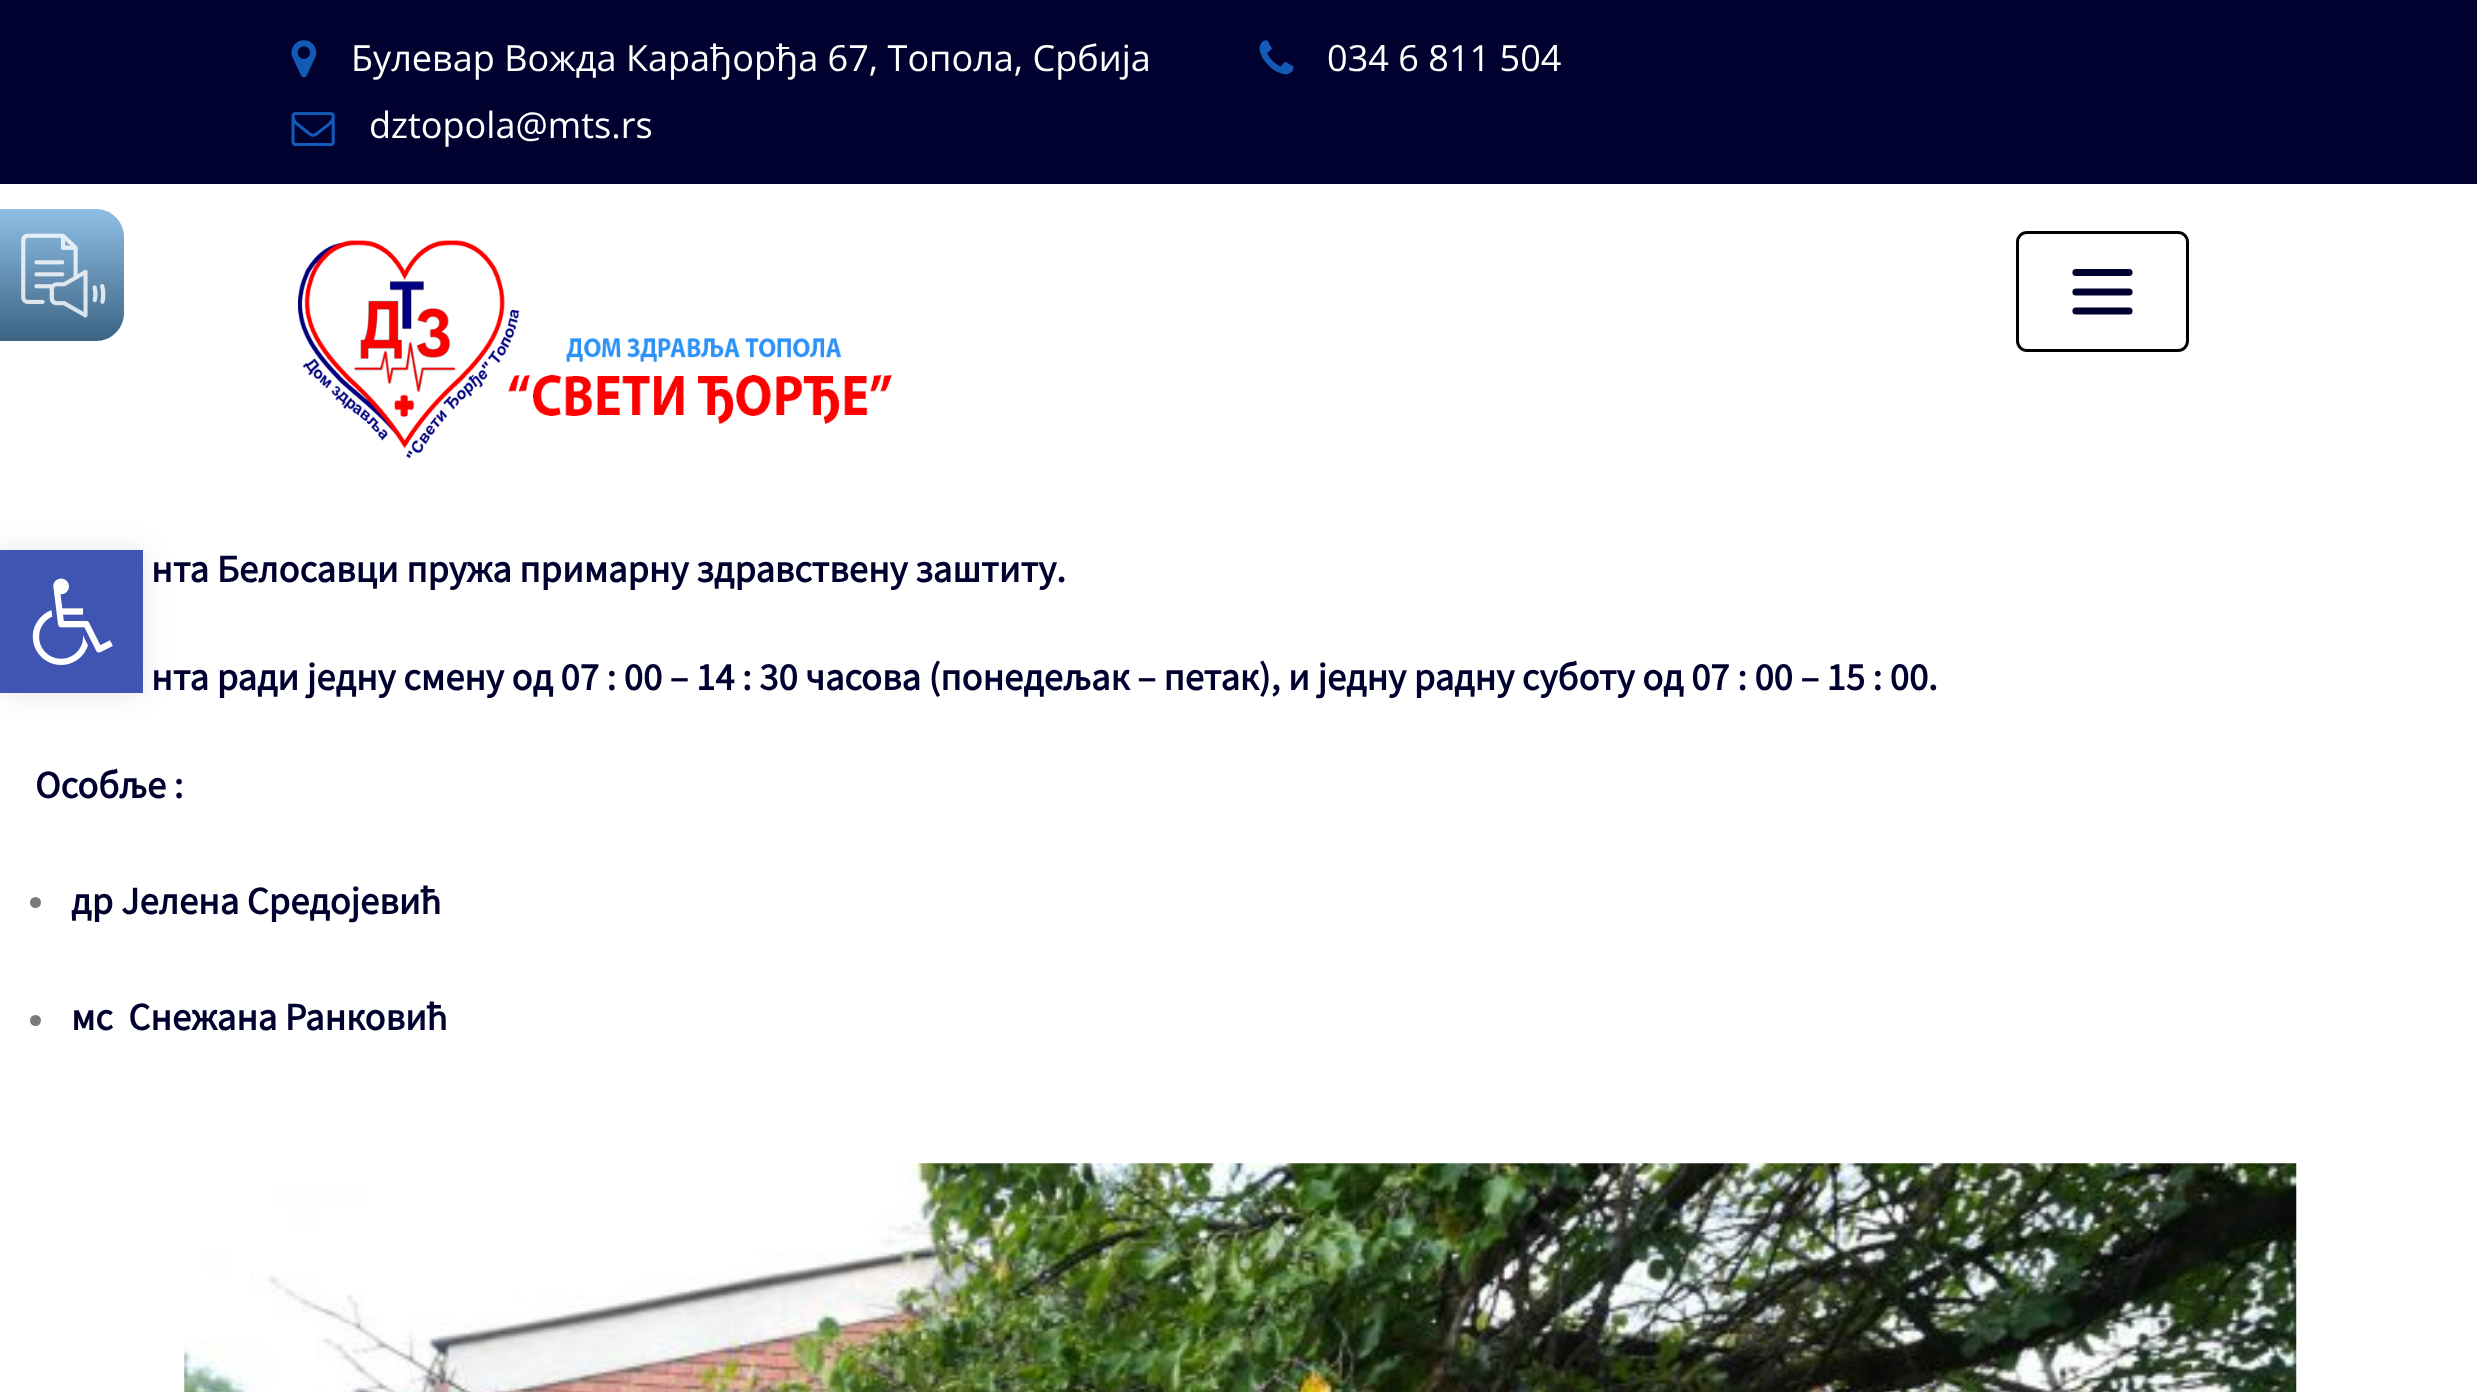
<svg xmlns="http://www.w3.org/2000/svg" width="2477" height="1392">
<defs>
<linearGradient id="g1" gradientUnits="userSpaceOnUse" x1="62" y1="209" x2="62" y2="341"><stop offset="0" stop-color="#8fbfe6"/><stop offset="1" stop-color="#3c6382"/></linearGradient>
</defs>
<rect width="100%" height="100%" fill="#fff"/>
<rect width="2477" height="184" fill="#01012f"/>
<image x="291" y="40" width="26" height="38" href="media/1.png"/>
<text x="351" y="71" style="font-family:Open Sans;font-size:36.1px;fill:#fff">Булевар Вожда Карађорђа 67, Топола, Србија</text>
<image x="1259" y="40" width="35" height="35" href="media/2.png"/>
<text x="1327" y="71" style="font-family:Open Sans;font-size:36.1px;fill:#fff">034 6 811 504</text>
<image x="291" y="112" width="44" height="35" href="media/3.png"/>
<text x="369" y="138" style="font-family:Open Sans;font-size:36.1px;fill:#fff">dztopola@mts.rs</text>
<image x="298" y="240" width="594" height="219" href="media/4.png"/>
<rect x="2017.5" y="232.5" width="170" height="118" rx="9.5" fill="none" stroke="#000" stroke-width="3"/>
<path d="M2076 272.5h53m-53 19.5h53m-53 19h53" fill="none" stroke="#01012f" stroke-width="7.2" stroke-linecap="round"/>
<text x="151" y="582" style="font-family:Source Sans Pro;font-size:38.5px;font-weight:bold;fill:#01012f">нта Белосавци пружа примарну здравствену заштиту.</text>
<text x="151" y="690" style="font-family:Source Sans Pro;font-size:38.5px;font-weight:bold;fill:#01012f">нта ради једну смену од 07 : 00 – 14 : 30 часова (понедељак – петак), и једну радну суботу од 07 : 00 – 15 : 00.</text>
<text x="35" y="798" style="font-family:Source Sans Pro;font-size:38.5px;font-weight:bold;fill:#01012f">Особље :</text>
<circle cx="35.5" cy="902.5" r="5.5" fill="#7a7a7a"/>
<text x="71" y="914" style="font-family:Source Sans Pro;font-size:38.5px;font-weight:bold;fill:#01012f">др Јелена Средојевић</text>
<circle cx="35.5" cy="1020.5" r="5.5" fill="#7a7a7a"/>
<text x="71" y="1030" style="font-family:Source Sans Pro;font-size:38.5px;font-weight:bold;fill:#01012f" xml:space="preserve">мс  Снежана Ранковић</text>
<image x="184" y="1163" width="2113" height="229" href="media/5.png"/>
<path d="M0 209h96c15.5 0 28 12.5 28 28v76c0 15.5-12.5 28-28 28h-96z" fill="url(#g1)"/>
<image x="21" y="233" width="85" height="85" href="media/6.png"/>
<rect y="550" width="143" height="143" fill="#0000001a" filter="blur(14px)"/>
<rect y="550" width="143" height="143" fill="#4054b2"/>
<image x="32" y="578" width="81" height="87" href="media/7.png"/>
</svg>
